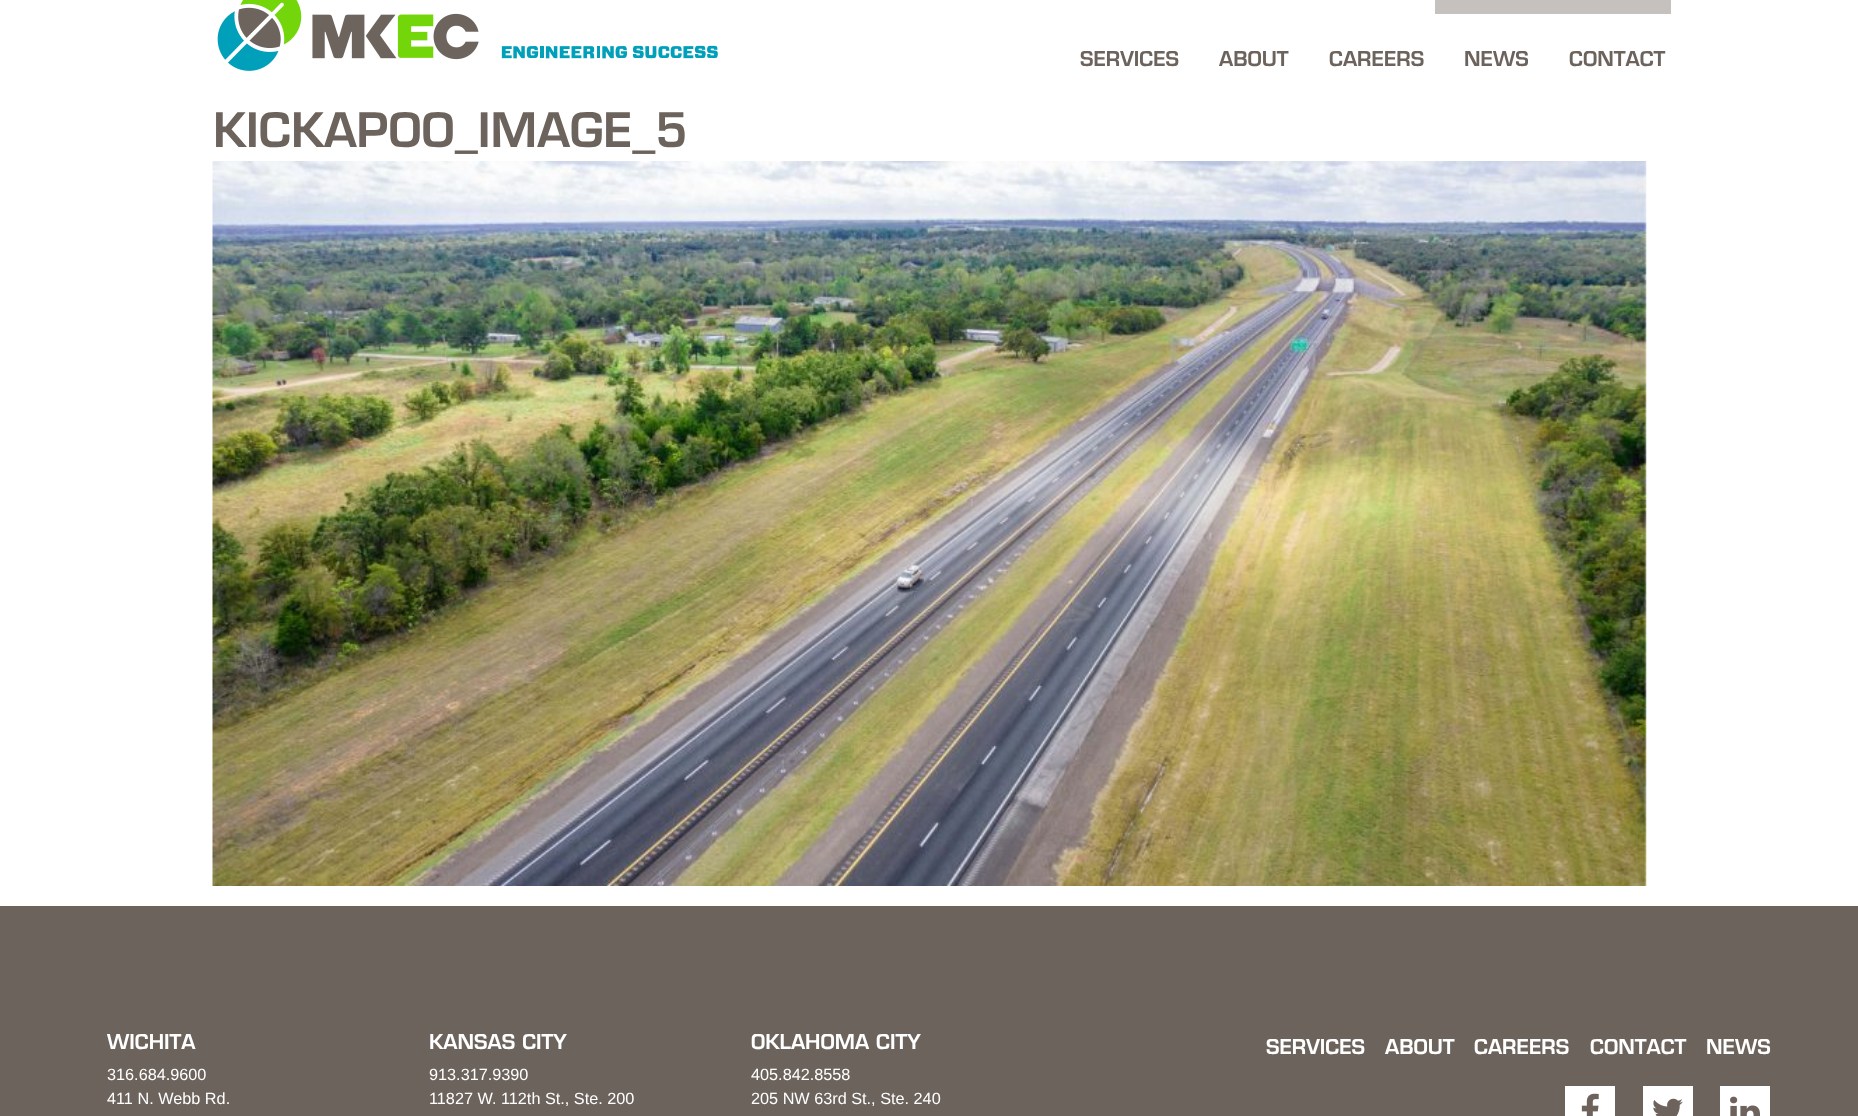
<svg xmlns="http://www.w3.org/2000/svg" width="1858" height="1116">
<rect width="100%" height="100%" fill="#fff"/>
<image x="217" y="0" width="501" height="71" href="media/1.png"/>
<rect x="1435" width="236" height="14" fill="#c4c1be"/>
<text x="1080" y="66" style="font-family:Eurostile;font-size:20px;font-weight:600;fill:#6d635d">SERVICES</text>
<text x="1219" y="66" style="font-family:Eurostile;font-size:20px;font-weight:600;fill:#6d635d">ABOUT</text>
<text x="1329" y="66" style="font-family:Eurostile;font-size:20px;font-weight:600;fill:#6d635d">CAREERS</text>
<text x="1464" y="66" style="font-family:Eurostile;font-size:20px;font-weight:600;fill:#6d635d">NEWS</text>
<text x="1569" y="66" style="font-family:Eurostile;font-size:20px;font-weight:600;fill:#6d635d">CONTACT</text>
<text x="213" y="147" style="font-family:Eurostile;font-size:46.25px;font-weight:600;fill:#6d635d">KICKAPOO_IMAGE_5</text>
<image x="212" y="161" width="1435" height="725" href="media/2.png"/>
<rect y="906" width="1858" height="210" fill="#6d635d"/>
<text x="107" y="1049" style="font-family:Eurostile;font-size:20px;font-weight:600;fill:#fff">WICHITA</text>
<text x="107" y="1080" style="font-family:Liberation Sans;font-size:16.25px;fill:#fff">316.684.9600</text>
<text x="107" y="1104" style="font-family:Liberation Sans;font-size:16.25px;fill:#fff">411 N. Webb Rd.</text>
<text x="429" y="1049" style="font-family:Eurostile;font-size:20px;font-weight:600;fill:#fff">KANSAS CITY</text>
<text x="429" y="1080" style="font-family:Liberation Sans;font-size:16.25px;fill:#fff">913.317.9390</text>
<text x="429" y="1104" style="font-family:Liberation Sans;font-size:16.25px;fill:#fff">11827 W. 112th St., Ste. 200</text>
<text x="751" y="1049" style="font-family:Eurostile;font-size:20px;font-weight:600;fill:#fff">OKLAHOMA CITY</text>
<text x="751" y="1080" style="font-family:Liberation Sans;font-size:16.25px;fill:#fff">405.842.8558</text>
<text x="751" y="1104" style="font-family:Liberation Sans;font-size:16.25px;fill:#fff">205 NW 63rd St., Ste. 240</text>
<text x="1266" y="1054" style="font-family:Eurostile;font-size:20px;font-weight:600;fill:#fff">SERVICES</text>
<text x="1385" y="1054" style="font-family:Eurostile;font-size:20px;font-weight:600;fill:#fff">ABOUT</text>
<text x="1474" y="1054" style="font-family:Eurostile;font-size:20px;font-weight:600;fill:#fff">CAREERS</text>
<text x="1590" y="1054" style="font-family:Eurostile;font-size:20px;font-weight:600;fill:#fff">CONTACT</text>
<text x="1706" y="1054" style="font-family:Eurostile;font-size:20px;font-weight:600;fill:#fff">NEWS</text>
<rect x="1565" y="1086" width="50" height="30" fill="#fff"/>
<image x="1581" y="1093" width="18" height="23" href="media/3.png"/>
<rect x="1643" y="1086" width="50" height="30" fill="#fff"/>
<image x="1653" y="1098" width="30" height="18" href="media/4.png"/>
<rect x="1720" y="1086" width="50" height="30" fill="#fff"/>
<image x="1730" y="1096" width="30" height="20" href="media/5.png"/>
</svg>
